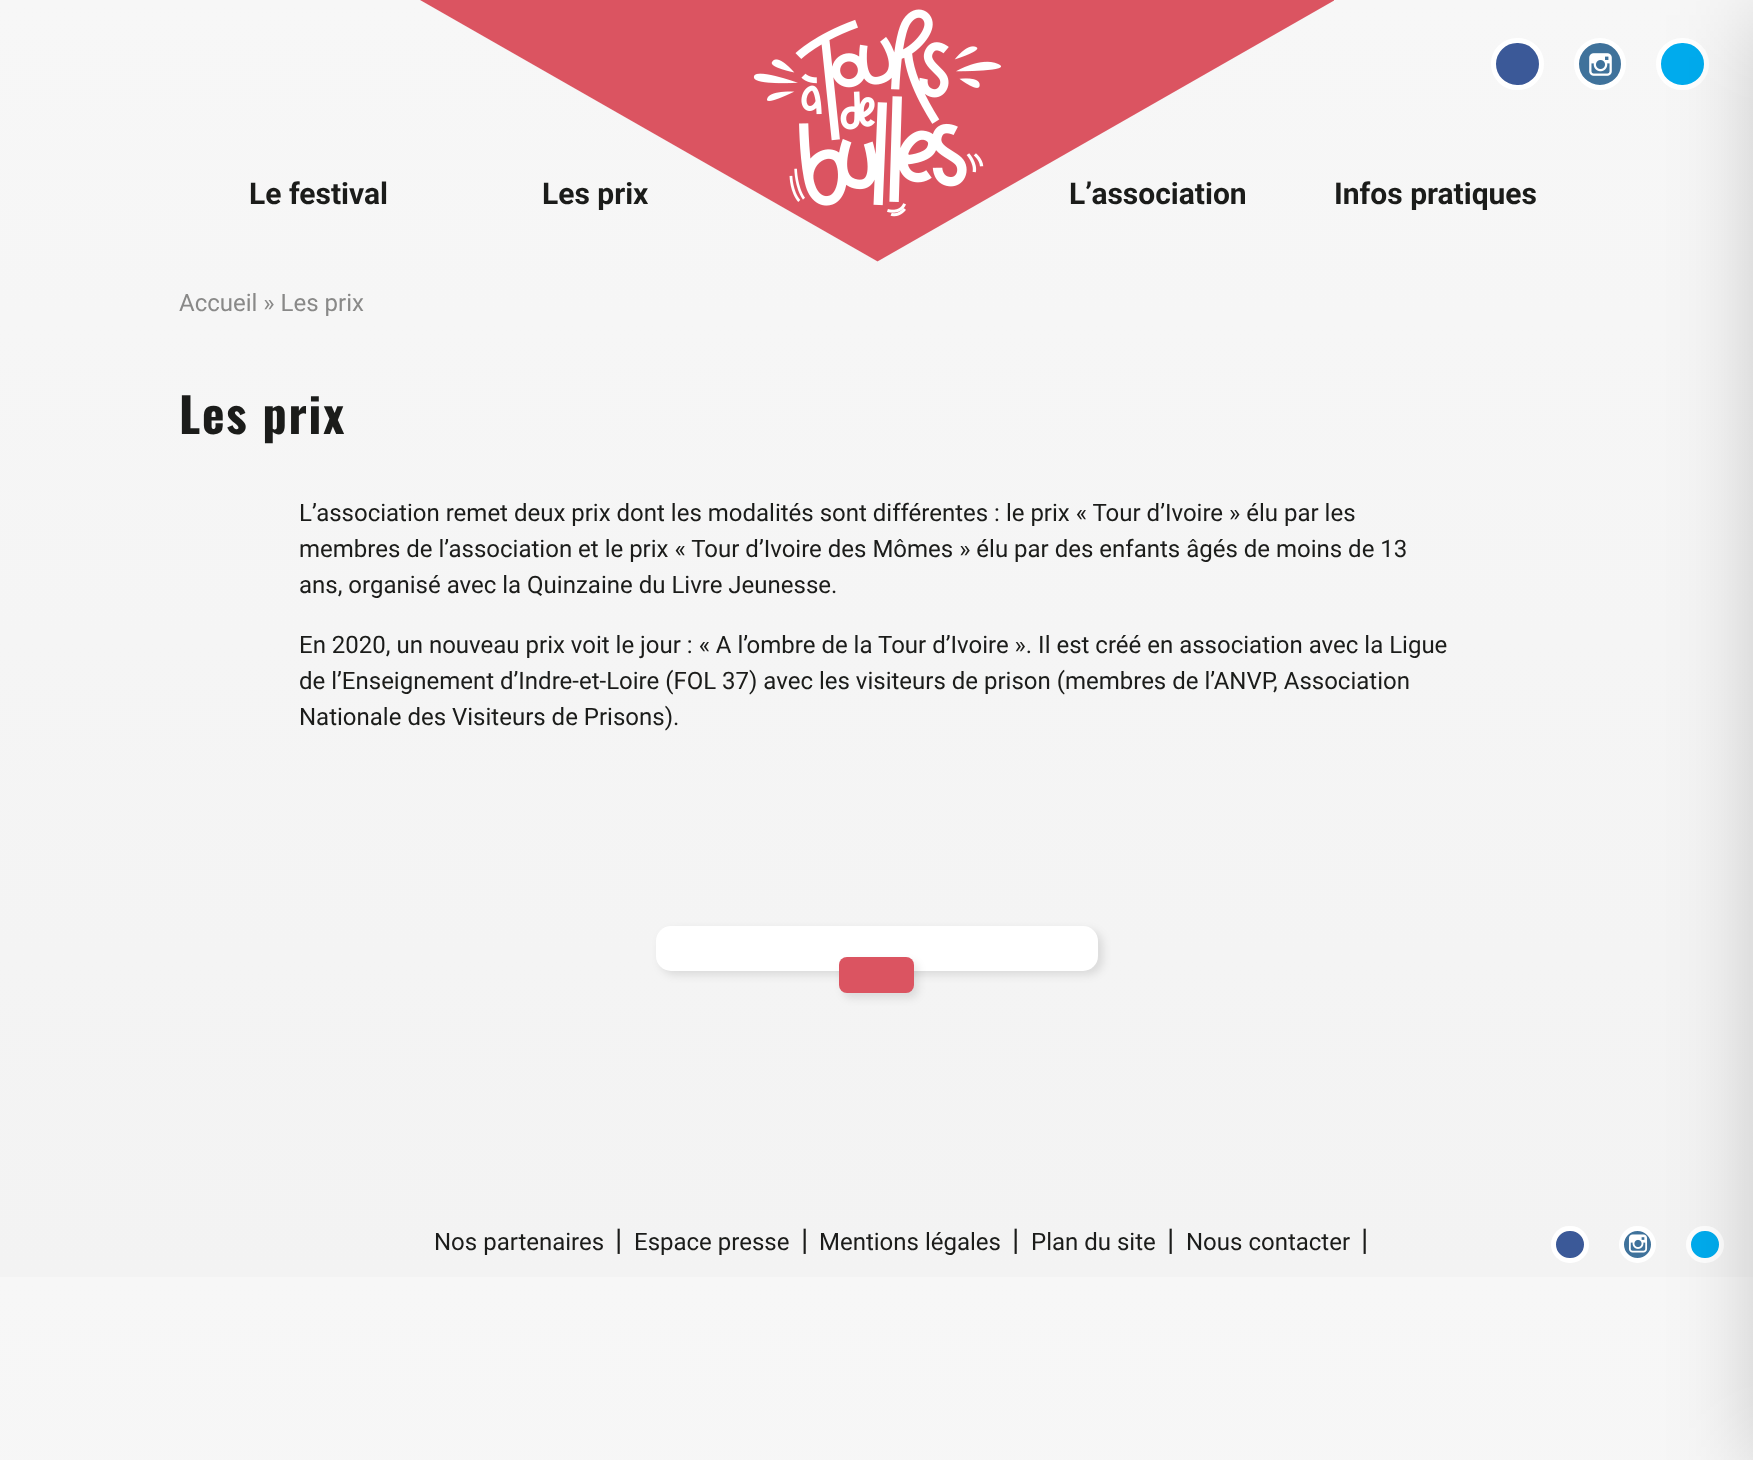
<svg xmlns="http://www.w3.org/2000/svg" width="1753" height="1460">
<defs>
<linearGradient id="g1" gradientUnits="userSpaceOnUse" x1="877" y1="0" x2="877" y2="1277"><stop offset="0" stop-color="#f7f7f7"/><stop offset="1" stop-color="#f3f3f3"/></linearGradient>
<linearGradient id="g2" gradientUnits="userSpaceOnUse" x1="877" y1="1277" x2="877" y2="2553"><stop offset="0" stop-color="#f7f7f7"/><stop offset="1" stop-color="#f3f3f3"/></linearGradient>
</defs>
<rect width="100%" height="100%" fill="#fff"/>
<rect width="1753" height="1277" fill="url(#g1)"/>
<rect y="1277" width="1753" height="183" fill="url(#g2)"/>
<image x="420" y="0" width="914" height="262" href="media/1.png"/>
<rect x="1493.5" y="40.5" width="48" height="47" rx="23.5" fill="#3b5998" stroke="#fff" stroke-width="5"/>
<circle cx="1600" cy="64" r="23.5" fill="#3f729b" stroke="#fff" stroke-width="5"/>
<image x="1589" y="53" width="23" height="23" href="media/2.png"/>
<rect x="1658.5" y="40.5" width="48" height="47" rx="23.5" fill="#00acee" stroke="#fff" stroke-width="5"/>
<text x="249" y="204" style="font-family:Roboto;font-size:30px;font-weight:bold;fill:#1b1c1a">Le festival</text>
<text x="542" y="204" style="font-family:Roboto;font-size:30px;font-weight:bold;fill:#1b1c1a">Les prix</text>
<text x="1069" y="204" style="font-family:Roboto;font-size:30px;font-weight:bold;fill:#1b1c1a">L’association</text>
<text x="1334" y="204" style="font-family:Roboto;font-size:30px;font-weight:bold;fill:#1b1c1a">Infos pratiques</text>
<text x="179" y="311" style="font-family:Roboto;font-size:24px;fill:#898988">Accueil » Les prix</text>
<circle cx="1637.5" cy="1244.5" r="16" fill="#3f729b" stroke="#fff" stroke-width="5"/>
<image x="1628" y="1234" width="20" height="19" href="media/3.png"/>
<rect x="1688.5" y="1228.5" width="33" height="32" rx="16" fill="#00acee" stroke="#fff" stroke-width="5"/>
<rect x="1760" y="15" width="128" height="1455" fill="#00000033" filter="blur(45px)"/>
<text x="179" y="434" style="font-family:Oswald;font-size:48px;font-weight:bold;letter-spacing:1.75px;fill:#1b1c1a">Les prix</text>
<text x="299" y="521" style="font-family:Roboto;font-size:24px;fill:#1b1c1a">L’association remet deux prix dont les modalités sont différentes : le prix « Tour d’Ivoire » élu par les</text>
<text x="299" y="557" style="font-family:Roboto;font-size:24px;fill:#1b1c1a">membres de l’association et le prix « Tour d’Ivoire des Mômes » élu par des enfants âgés de moins de 13</text>
<text x="299" y="593" style="font-family:Roboto;font-size:24px;fill:#1b1c1a">ans, organisé avec la Quinzaine du Livre Jeunesse.</text>
<text x="299" y="653" style="font-family:Roboto;font-size:24px;fill:#1b1c1a">En 2020, un nouveau prix voit le jour : « A l’ombre de la Tour d’Ivoire ». Il est créé en association avec la Ligue</text>
<text x="299" y="689" style="font-family:Roboto;font-size:24px;fill:#1b1c1a">de l’Enseignement d’Indre-et-Loire (FOL 37) avec les visiteurs de prison (membres de l’ANVP, Association</text>
<text x="299" y="725" style="font-family:Roboto;font-size:24px;fill:#1b1c1a">Nationale des Visiteurs de Prisons).</text>
<rect x="660" y="930" width="443" height="45" rx="15" fill="#0000001a" filter="blur(4px)"/>
<rect x="656" y="926" width="442" height="45" rx="15" fill="#fff"/>
<rect x="843" y="962" width="75" height="36" rx="8" fill="#0000001a" filter="blur(4px)"/>
<rect x="839" y="957" width="75" height="36" rx="8" fill="#db5461"/>
<text x="434" y="1250" style="font-family:Roboto;font-size:24px;fill:#1b1c1a">Nos partenaires</text>
<text x="615" y="1250" style="font-family:Roboto;font-size:30px;fill:#1b1c1a">|</text>
<text x="634" y="1250" style="font-family:Roboto;font-size:24px;fill:#1b1c1a">Espace presse</text>
<text x="801" y="1250" style="font-family:Roboto;font-size:30px;fill:#1b1c1a">|</text>
<text x="819" y="1250" style="font-family:Roboto;font-size:24px;fill:#1b1c1a">Mentions légales</text>
<text x="1012" y="1250" style="font-family:Roboto;font-size:30px;fill:#1b1c1a">|</text>
<text x="1031" y="1250" style="font-family:Roboto;font-size:24px;fill:#1b1c1a">Plan du site</text>
<text x="1167" y="1250" style="font-family:Roboto;font-size:30px;fill:#1b1c1a">|</text>
<text x="1186" y="1250" style="font-family:Roboto;font-size:24px;fill:#1b1c1a">Nous contacter</text>
<text x="1361" y="1250" style="font-family:Roboto;font-size:30px;fill:#1b1c1a">|</text>
<rect x="1553.5" y="1228.5" width="33" height="32" rx="16" fill="#3b5998" stroke="#fff" stroke-width="5"/>
</svg>
